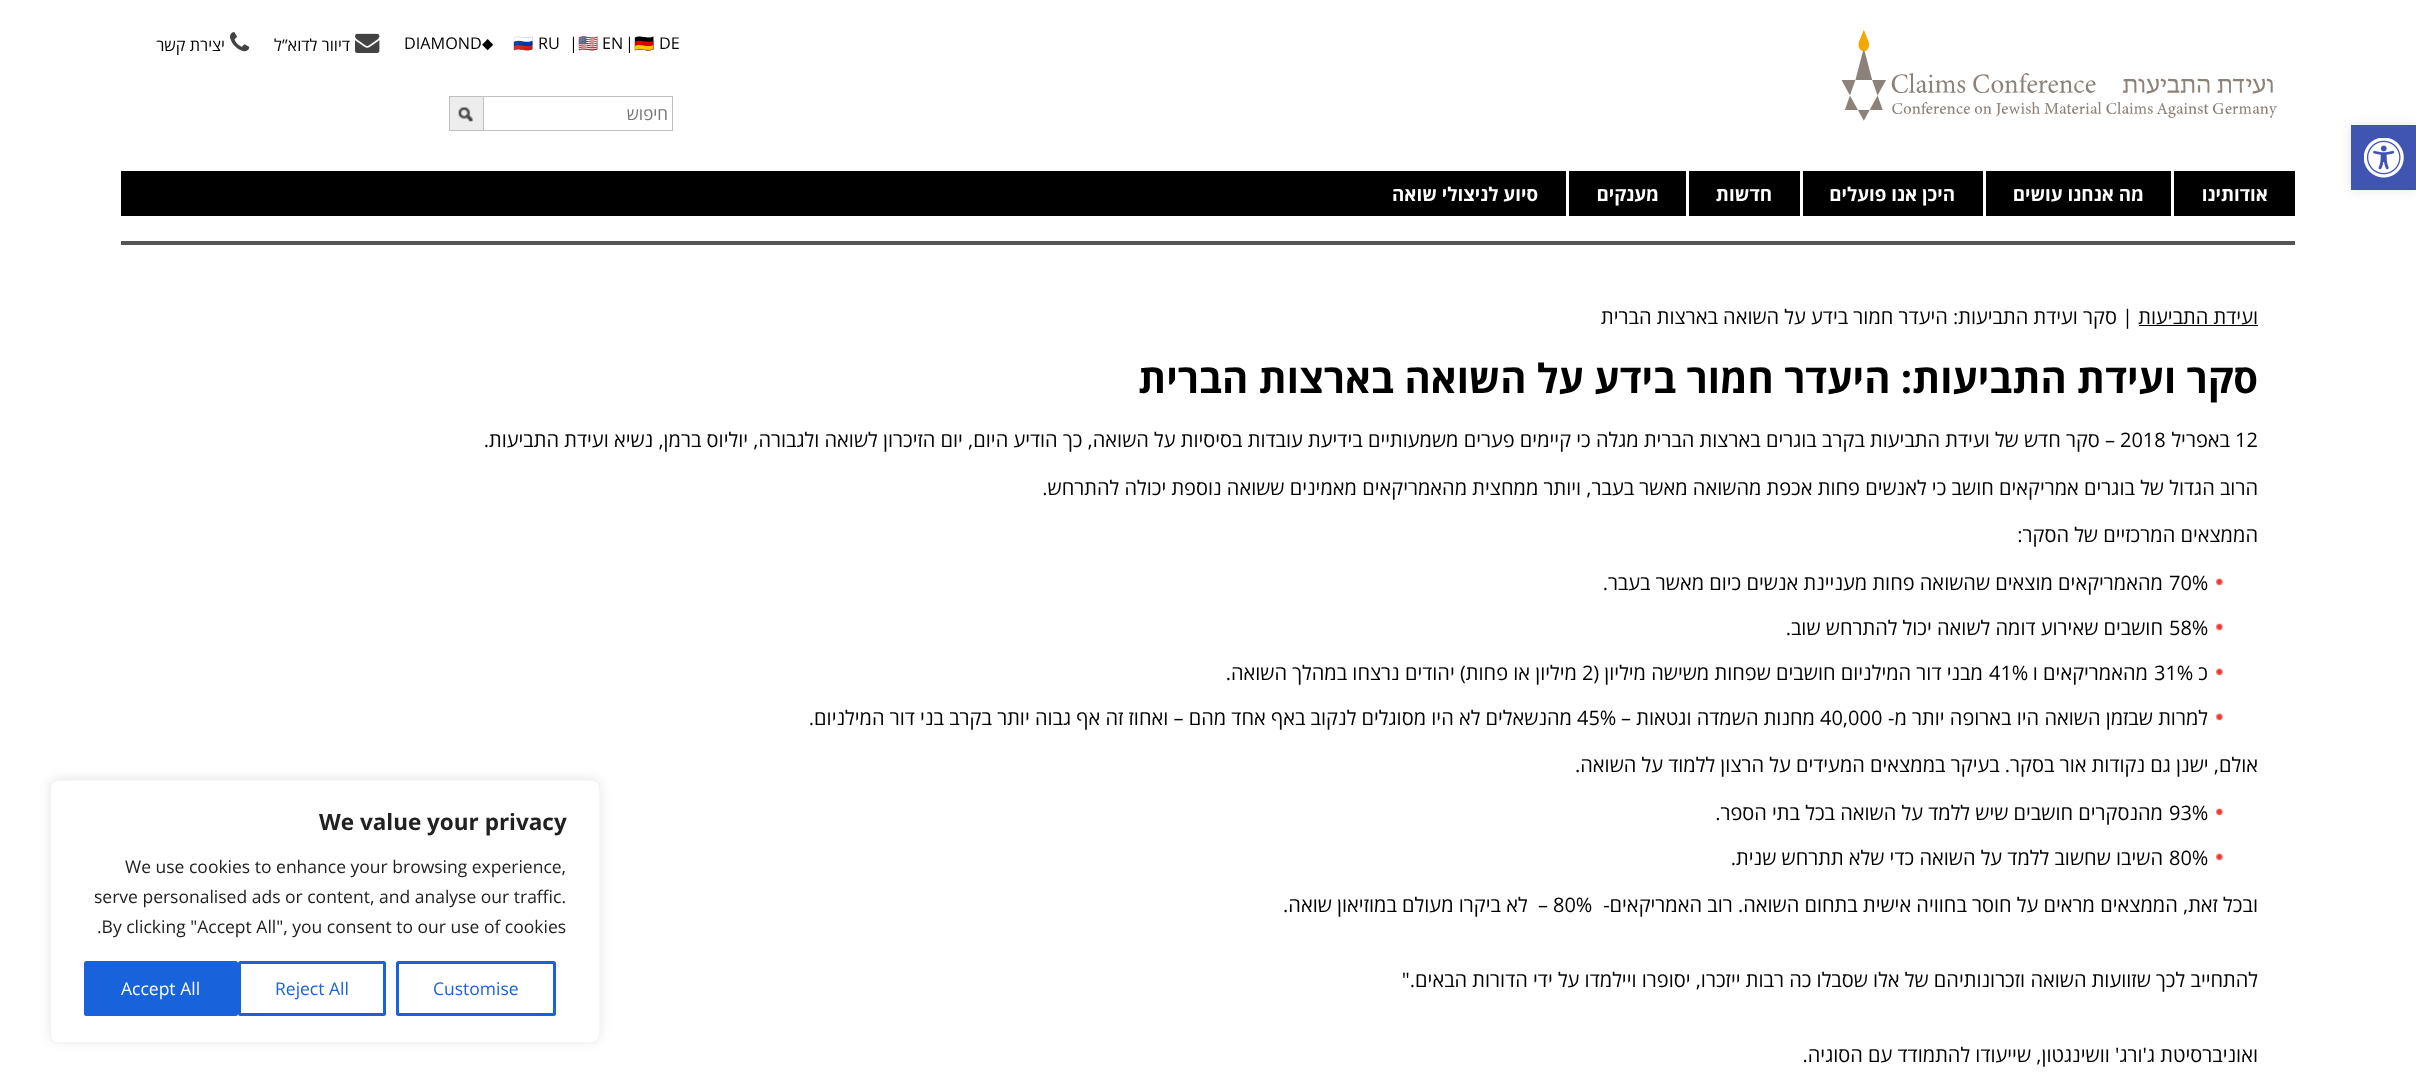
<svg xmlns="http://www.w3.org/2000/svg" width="2416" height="1092">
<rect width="100%" height="100%" fill="#fff"/>
<rect x="2351" y="125" width="65" height="65" fill="#0000001a" filter="blur(6px)"/>
<rect x="2351" y="125" width="65" height="65" fill="#4054b2"/>
<image x="2364" y="138" width="40" height="40" href="media/1.png"/>
<image x="1841" y="30" width="436" height="91" href="media/2.png"/>
<text x="659" y="49" style="font-family:Open Sans;font-size:16.25px;fill:#000">DE</text>
<text x="634" y="49" style="font-family:Noto Color Emoji;font-size:16.25px;fill:#000">🇩🇪</text>
<text x="625" y="49" style="font-family:Open Sans;font-size:16.25px;fill:#000">|</text>
<text x="602" y="49" style="font-family:Open Sans;font-size:16.25px;fill:#000">EN</text>
<text x="578" y="49" style="font-family:Noto Color Emoji;font-size:16.25px;fill:#000">🇺🇸</text>
<text x="569" y="49" style="font-family:Open Sans;font-size:16.25px;fill:#000">|</text>
<text x="538" y="49" style="font-family:Open Sans;font-size:16.25px;fill:#000">RU</text>
<text x="513" y="49" style="font-family:Noto Color Emoji;font-size:16.25px;fill:#000">🇷🇺</text>
<text x="482" y="49" style="font-family:FreeSans;font-size:16.25px;fill:#000">⬥</text>
<text x="404" y="49" style="font-family:Open Sans;font-size:16.25px;fill:#000">DIAMOND</text>
<image x="355" y="33" width="25" height="20" href="media/3.png"/>
<text x="350" y="51" style="font-family:Open Sans;font-size:16.25px;direction:rtl;fill:#000">דיוור לדוא”ל</text>
<image x="230" y="32" width="20" height="20" href="media/4.png"/>
<text x="225" y="51" style="font-family:Open Sans;font-size:16.25px;direction:rtl;fill:#000">יצירת קשר</text>
<rect x="478.5" y="96.5" width="194" height="34" fill="none" stroke="#c0c0c0"/>
<text x="668" y="120" style="font-family:Open Sans;font-size:17px;direction:rtl;fill:#757575">חיפוש</text>
<rect x="450" y="97" width="33" height="33" fill="#ededed"/>
<image x="458" y="107" width="15" height="15" href="media/5.png"/>
<rect x="449.5" y="96.5" width="34" height="34" fill="none" stroke="#c0c0c0"/>
<rect x="121" y="171" width="2174" height="45" fill="#000"/>
<rect x="2171" y="171" width="3" height="45" fill="#fff"/>
<text x="2268" y="201" style="font-family:Open Sans;font-size:18.75px;font-weight:bold;direction:rtl;fill:#fff">אודותינו</text>
<rect x="1983" y="171" width="3" height="45" fill="#fff"/>
<text x="2144" y="201" style="font-family:Open Sans;font-size:18.75px;font-weight:bold;direction:rtl;fill:#fff">מה אנחנו עושים</text>
<rect x="1800" y="171" width="3" height="45" fill="#fff"/>
<text x="1955" y="201" style="font-family:Open Sans;font-size:18.75px;font-weight:bold;direction:rtl;fill:#fff">היכן אנו פועלים</text>
<rect x="1686" y="171" width="3" height="45" fill="#fff"/>
<text x="1772" y="201" style="font-family:Open Sans;font-size:18.75px;font-weight:bold;direction:rtl;fill:#fff">חדשות</text>
<rect x="1566" y="171" width="3" height="45" fill="#fff"/>
<text x="1659" y="201" style="font-family:Open Sans;font-size:18.75px;font-weight:bold;direction:rtl;fill:#fff">מענקים</text>
<text x="1538" y="201" style="font-family:Open Sans;font-size:18.75px;font-weight:bold;direction:rtl;fill:#fff">סיוע לניצולי שואה</text>
<rect x="121" y="241" width="2174" height="4" fill="#555"/>
<text x="2258" y="324" style="font-family:Open Sans;font-size:20px;direction:rtl;fill:#000">ועידת התביעות</text>
<rect x="2139" y="325" width="119" height="1" fill="#000"/>
<text x="2122" y="324" style="font-family:Open Sans;font-size:20px;fill:#000">|</text>
<text x="2117" y="324" style="font-family:Open Sans;font-size:20px;direction:rtl;fill:#000">סקר ועידת התביעות: היעדר חמור בידע על השואה בארצות הברית</text>
<text x="2258" y="393" style="font-family:Open Sans;font-size:40px;font-weight:bold;direction:rtl;fill:#000">סקר ועידת התביעות: היעדר חמור בידע על השואה בארצות הברית</text>
<text x="2235" y="447" style="font-family:Open Sans;font-size:20px;fill:#000">12</text>
<text x="2230" y="447" style="font-family:Open Sans;font-size:20px;direction:rtl;fill:#000">באפריל</text>
<text x="2120" y="447" style="font-family:Open Sans;font-size:20px;fill:#000">2018</text>
<text x="2115" y="447" style="font-family:Open Sans;font-size:20px;direction:rtl;fill:#000">– סקר חדש של ועידת התביעות בקרב בוגרים בארצות הברית מגלה כי קיימים פערים משמעותיים בידיעת עובדות בסיסיות על השואה, כך הודיע היום, יום הזיכרון לשואה ולגבורה, יוליוס ברמן, נשיא ועידת התביעות.</text>
<text x="2258" y="495" style="font-family:Open Sans;font-size:20px;direction:rtl;fill:#000">הרוב הגדול של בוגרים אמריקאים חושב כי לאנשים פחות אכפת מהשואה מאשר בעבר, ויותר ממחצית מהאמריקאים מאמינים ששואה נוספת יכולה להתרחש.</text>
<text x="2258" y="542" style="font-family:Open Sans;font-size:20px;direction:rtl;fill:#000">הממצאים המרכזיים של הסקר:</text>
<image x="2216" y="578" width="7" height="8" href="media/6.png"/>
<text x="2169" y="590" style="font-family:Open Sans;font-size:20px;fill:#000">70%</text>
<text x="2163" y="590" style="font-family:Open Sans;font-size:20px;direction:rtl;fill:#000">מהאמריקאים מוצאים שהשואה פחות מעניינת אנשים כיום מאשר בעבר.</text>
<image x="2216" y="623" width="7" height="8" href="media/6.png"/>
<text x="2169" y="635" style="font-family:Open Sans;font-size:20px;fill:#000">58%</text>
<text x="2163" y="635" style="font-family:Open Sans;font-size:20px;direction:rtl;fill:#000">חושבים שאירוע דומה לשואה יכול להתרחש שוב.</text>
<image x="2216" y="668" width="7" height="8" href="media/6.png"/>
<text x="2208" y="680" style="font-family:Open Sans;font-size:20px;direction:rtl;fill:#000">כ</text>
<text x="2154" y="680" style="font-family:Open Sans;font-size:20px;fill:#000">31%</text>
<text x="2148" y="680" style="font-family:Open Sans;font-size:20px;direction:rtl;fill:#000">מהאמריקאים ו</text>
<text x="1989" y="680" style="font-family:Open Sans;font-size:20px;fill:#000">41%</text>
<text x="1983" y="680" style="font-family:Open Sans;font-size:20px;direction:rtl;fill:#000">מבני דור המילניום חושבים שפחות משישה מיליון (</text>
<text x="1582" y="680" style="font-family:Open Sans;font-size:20px;fill:#000">2</text>
<text x="1577" y="680" style="font-family:Open Sans;font-size:20px;direction:rtl;fill:#000">מיליון או פחות) יהודים נרצחו במהלך השואה.</text>
<image x="2216" y="713" width="7" height="8" href="media/6.png"/>
<text x="2208" y="725" style="font-family:Open Sans;font-size:20px;direction:rtl;fill:#000">למרות שבזמן השואה היו בארופה יותר מ-</text>
<text x="1820" y="725" style="font-family:Open Sans;font-size:20px;fill:#000">40,000</text>
<text x="1815" y="725" style="font-family:Open Sans;font-size:20px;direction:rtl;fill:#000">מחנות השמדה וגטאות –</text>
<text x="1577" y="725" style="font-family:Open Sans;font-size:20px;fill:#000">45%</text>
<text x="1572" y="725" style="font-family:Open Sans;font-size:20px;direction:rtl;fill:#000">מהנשאלים לא היו מסוגלים לנקוב באף אחד מהם – ואחוז זה אף גבוה יותר בקרב בני דור המילניום.</text>
<text x="2258" y="772" style="font-family:Open Sans;font-size:20px;direction:rtl;fill:#000">אולם, ישנן גם נקודות אור בסקר. בעיקר בממצאים המעידים על הרצון ללמוד על השואה.</text>
<image x="2216" y="808" width="7" height="8" href="media/6.png"/>
<text x="2169" y="820" style="font-family:Open Sans;font-size:20px;fill:#000">93%</text>
<text x="2163" y="820" style="font-family:Open Sans;font-size:20px;direction:rtl;fill:#000">מהנסקרים חושבים שיש ללמד על השואה בכל בתי הספר.</text>
<image x="2216" y="853" width="7" height="8" href="media/6.png"/>
<text x="2169" y="865" style="font-family:Open Sans;font-size:20px;fill:#000">80%</text>
<text x="2163" y="865" style="font-family:Open Sans;font-size:20px;direction:rtl;fill:#000">השיבו שחשוב ללמד על השואה כדי שלא תתרחש שנית.</text>
<text x="2258" y="912" style="font-family:Open Sans;font-size:20px;direction:rtl;fill:#000">ובכל זאת, הממצאים מראים על חוסר בחוויה אישית בתחום השואה. רוב האמריקאים-</text>
<text x="1553" y="912" style="font-family:Open Sans;font-size:20px;fill:#000">80%</text>
<text x="1548" y="912" style="font-family:Open Sans;font-size:20px;direction:rtl;fill:#000" xml:space="preserve">–  לא ביקרו מעולם במוזיאון שואה.</text>
<text x="2258" y="987" style="font-family:Open Sans;font-size:20px;direction:rtl;fill:#000">להתחייב לכך שזוועות השואה וזכרונותיהם של אלו שסבלו כה רבות ייזכרו, יסופרו ויילמדו על ידי הדורות הבאים."</text>
<text x="2258" y="1062" style="font-family:Open Sans;font-size:20px;direction:rtl;fill:#000">ואוניברסיטת ג'ורג' וושינגטון, שייעודו להתמודד עם הסוגיה.</text>
<rect x="50" y="779" width="550" height="262" rx="8" fill="#acabab4d" filter="blur(6px)"/>
<rect x="50.5" y="780.5" width="549" height="262" rx="7.5" fill="#fff" stroke="#f4f4f4"/>
<text x="319" y="830" style="font-family:Open Sans;font-size:22.5px;font-weight:bold;fill:#212121">We value your privacy</text>
<text x="125" y="873" style="font-family:Open Sans;font-size:17.5px;fill:#212121">We use cookies to enhance your browsing experience,</text>
<text x="94" y="903" style="font-family:Open Sans;font-size:17.5px;fill:#212121">serve personalised ads or content, and analyse our traffic.</text>
<text x="97" y="933" style="font-family:Open Sans;font-size:17.5px;fill:#212121">.By clicking "Accept All", you consent to our use of cookies</text>
<rect x="397.5" y="962.5" width="157" height="52" rx="1" fill="none" stroke="#1863dc" stroke-width="3"/>
<text x="433" y="995" style="font-family:Open Sans;font-size:17.5px;fill:#1863dc">Customise</text>
<rect x="239.5" y="962.5" width="145" height="52" rx="1" fill="none" stroke="#1863dc" stroke-width="3"/>
<text x="275" y="995" style="font-family:Open Sans;font-size:17.5px;fill:#1863dc">Reject All</text>
<rect x="85.5" y="962.5" width="151" height="52" rx="1" fill="#1863dc" stroke="#1863dc" stroke-width="3"/>
<text x="121" y="995" style="font-family:Open Sans;font-size:17.5px;fill:#fff">Accept All</text>
</svg>
